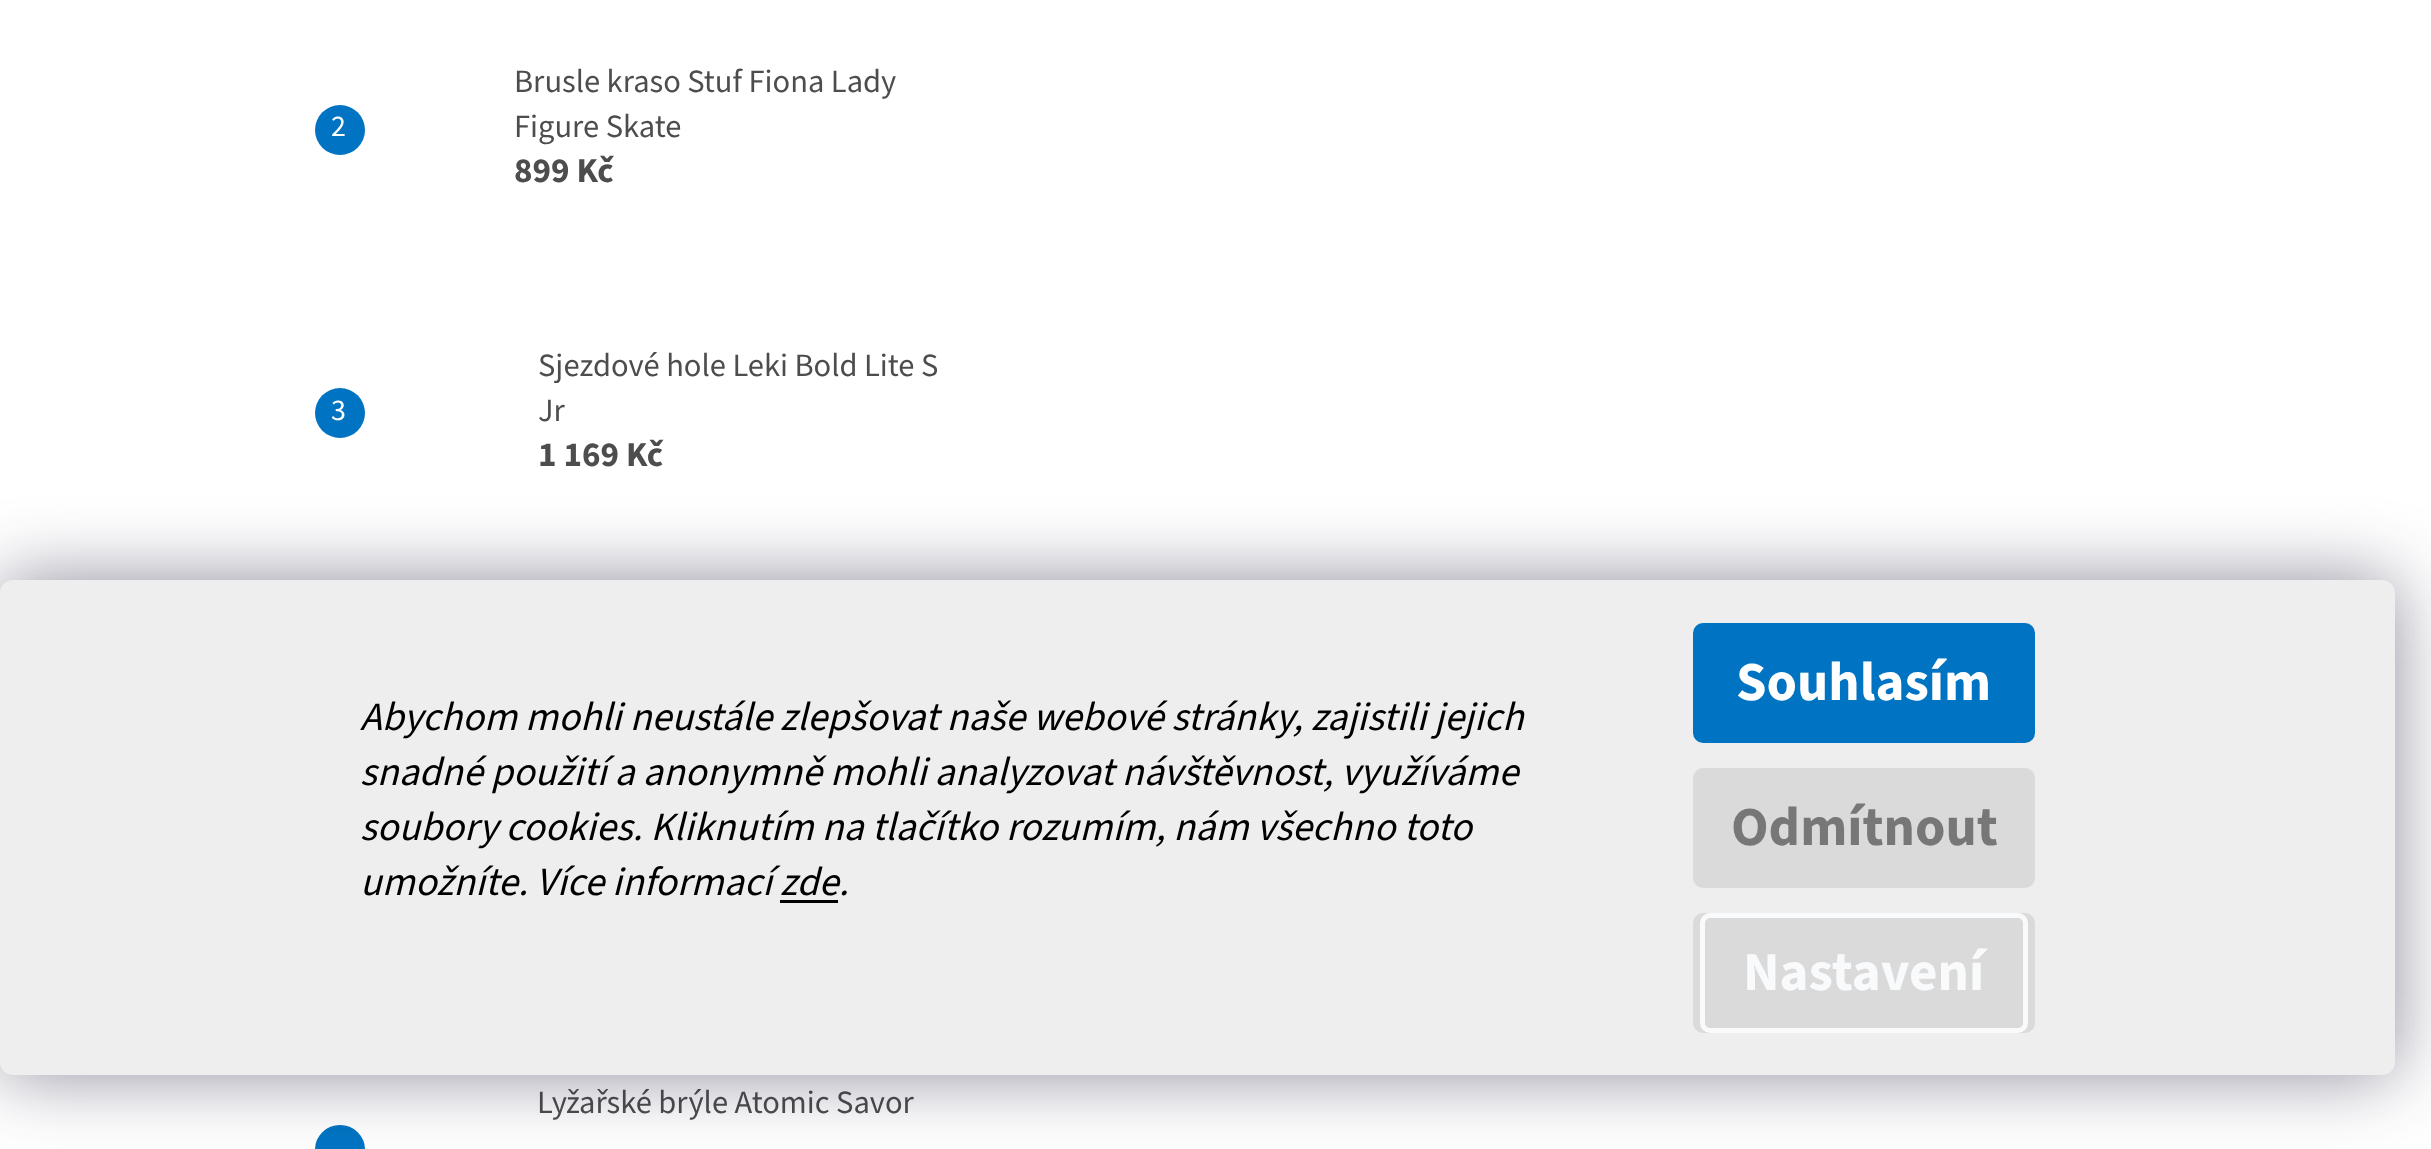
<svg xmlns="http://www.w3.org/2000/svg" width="2431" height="1149">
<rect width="100%" height="100%" fill="#fff"/>
<circle cx="340" cy="130" r="25" fill="#0074c3"/>
<text x="331" y="136" style="font-family:'Source Sans 3';font-size:30px;fill:#fff">2</text>
<text x="514" y="92" style="font-family:'Source Sans 3';font-size:32.5px;fill:#4d4d4d">Brusle kraso Stuf Fiona Lady</text>
<text x="514" y="137" style="font-family:'Source Sans 3';font-size:32.5px;fill:#4d4d4d">Figure Skate</text>
<text x="514" y="182" style="font-family:'Source Sans 3';font-size:35px;font-weight:bold;fill:#4d4d4d">899 Kč</text>
<circle cx="340" cy="413" r="25" fill="#0074c3"/>
<text x="331" y="420" style="font-family:'Source Sans 3';font-size:30px;fill:#fff">3</text>
<text x="538" y="376" style="font-family:'Source Sans 3';font-size:32.5px;fill:#4d4d4d">Sjezdové hole Leki Bold Lite S</text>
<text x="538" y="421" style="font-family:'Source Sans 3';font-size:32.5px;fill:#4d4d4d">Jr</text>
<text x="538" y="466" style="font-family:'Source Sans 3';font-size:35px;font-weight:bold;fill:#4d4d4d">1 169 Kč</text>
<text x="537" y="1113" style="font-family:'Source Sans 3';font-size:32.5px;fill:#4d4d4d">Lyžařské brýle Atomic Savor</text>
<rect x="315" y="1125" width="50" height="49" rx="25" fill="#0074c3"/>
<rect y="580" width="2395" height="495" rx="13" fill="#1b193980" filter="blur(37.5px)"/>
<rect x="2.5" y="582.5" width="2390" height="490" rx="10.5" fill="#eee" stroke="#eee" stroke-width="5"/>
<text x="360" y="730" style="font-family:'Source Sans 3';font-size:40px;font-style:italic;fill:#000">Abychom mohli neustále zlepšovat naše webové stránky, zajistili jejich</text>
<text x="360" y="785" style="font-family:'Source Sans 3';font-size:40px;font-style:italic;fill:#000">snadné použití a anonymně mohli analyzovat návštěvnost, využíváme</text>
<text x="360" y="840" style="font-family:'Source Sans 3';font-size:40px;font-style:italic;fill:#000">soubory cookies. Kliknutím na tlačítko rozumím, nám všechno toto</text>
<text x="360" y="895" style="font-family:'Source Sans 3';font-size:40px;font-style:italic;fill:#000">umožníte. Více informací zde.</text>
<rect x="780" y="900" width="58" height="3" fill="#000"/>
<rect x="1693" y="623" width="342" height="120" rx="10" fill="#0074c3"/>
<text x="1736" y="700" style="font-family:'Source Sans 3';font-size:55px;font-weight:bold;fill:#fff">Souhlasím</text>
<rect x="1693" y="768" width="342" height="120" rx="10" fill="#dadada"/>
<text x="1731" y="845" style="font-family:'Source Sans 3';font-size:55px;font-weight:bold;fill:#777">Odmítnout</text>
<rect x="1693" y="913" width="342" height="120" rx="10" fill="#dadada"/>
<rect x="1702.5" y="915.5" width="323" height="115" rx="7.5" fill="none" stroke="#f8fafb" stroke-width="5"/>
<text x="1743" y="990" style="font-family:'Source Sans 3';font-size:55px;font-weight:bold;fill:#f8fafb">Nastavení</text>
</svg>
